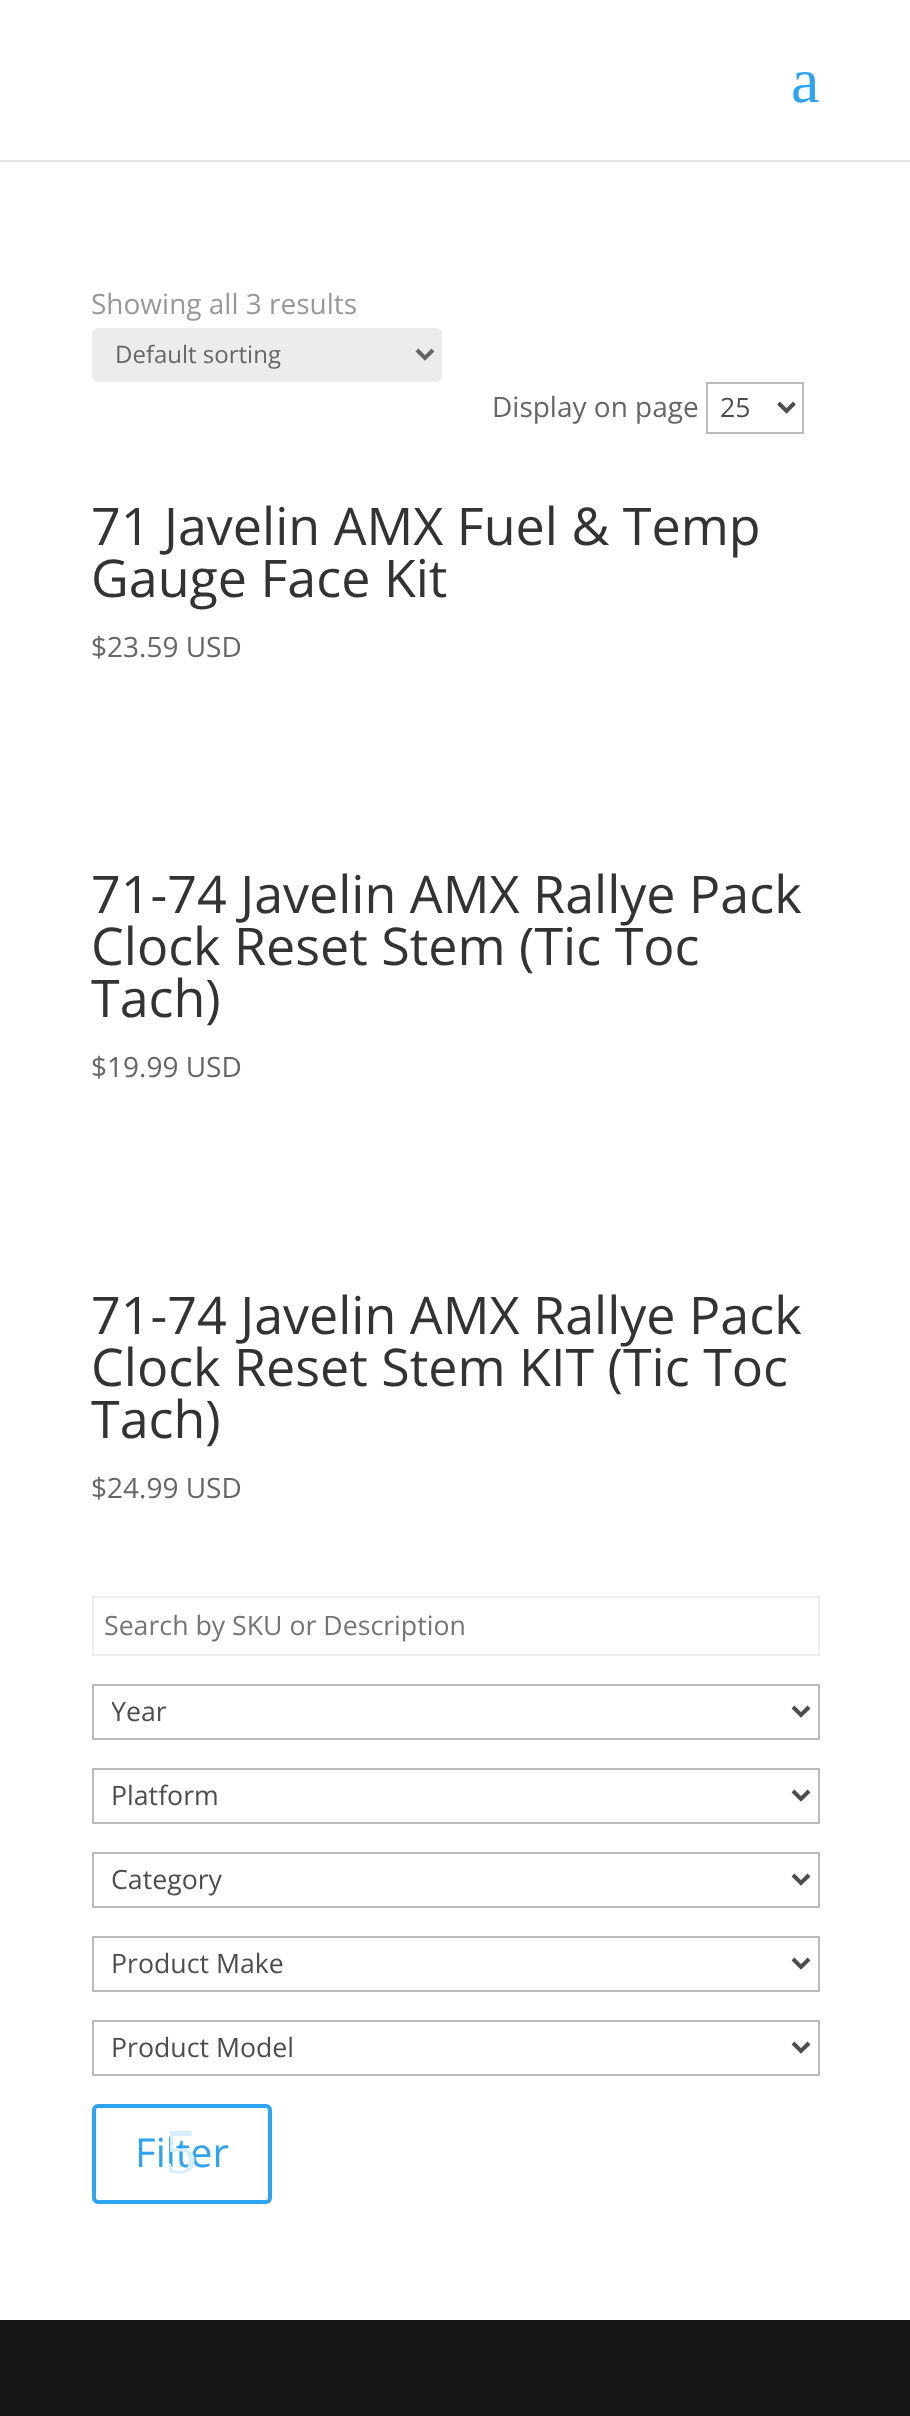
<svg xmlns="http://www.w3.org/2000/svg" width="910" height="2416">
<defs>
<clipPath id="clip1"><rect x="112" y="1692" width="664" height="40"/></clipPath>
</defs>
<rect width="100%" height="100%" fill="#fff"/>
<rect y="160" width="910" height="2" fill="#0000001a"/>
<text x="791" y="102" style="font-family:Liberation Serif;font-size:64px;fill:#2ea3f2">a</text>
<text x="91" y="314" style="font-family:Open Sans;font-size:28px;fill:#999">Showing all 3 results</text>
<rect x="92" y="328" width="350" height="54" rx="6" fill="#ececec"/>
<path d="M417 350l8 8l8-8" fill="none" stroke="#666" stroke-width="4"/>
<text x="115" y="363" style="font-family:Open Sans;font-size:24px;fill:#666">Default sorting</text>
<text x="492" y="417" style="font-family:Open Sans;font-size:28px;fill:#666">Display on page</text>
<rect x="707" y="383" width="96" height="50" fill="none" stroke="#bbb" stroke-width="2"/>
<path d="M778.5 403l8 8l8-8" fill="none" stroke="#4e4e4e" stroke-width="4"/>
<text x="720" y="417" style="font-family:Open Sans;font-size:26.7px;fill:#4e4e4e">25</text>
<text x="91" y="545" style="font-family:Open Sans;font-size:52px;fill:#333">71 Javelin AMX Fuel &amp; Temp</text>
<text x="91" y="597" style="font-family:Open Sans;font-size:52px;fill:#333">Gauge Face Kit</text>
<text x="91" y="657" style="font-family:Open Sans;font-size:28px;fill:#666">$23.59 USD</text>
<text x="91" y="913" style="font-family:Open Sans;font-size:52px;fill:#333">71-74 Javelin AMX Rallye Pack</text>
<text x="91" y="965" style="font-family:Open Sans;font-size:52px;fill:#333">Clock Reset Stem (Tic Toc</text>
<text x="91" y="1017" style="font-family:Open Sans;font-size:52px;fill:#333">Tach)</text>
<text x="91" y="1077" style="font-family:Open Sans;font-size:28px;fill:#666">$19.99 USD</text>
<text x="91" y="1334" style="font-family:Open Sans;font-size:52px;fill:#333">71-74 Javelin AMX Rallye Pack</text>
<text x="91" y="1386" style="font-family:Open Sans;font-size:52px;fill:#333">Clock Reset Stem KIT (Tic Toc</text>
<text x="91" y="1438" style="font-family:Open Sans;font-size:52px;fill:#333">Tach)</text>
<text x="91" y="1498" style="font-family:Open Sans;font-size:28px;fill:#666">$24.99 USD</text>
<rect x="93" y="1597" width="726" height="58" fill="none" stroke="#eee" stroke-width="2"/>
<text x="104" y="1635" style="font-family:Open Sans;font-size:26.7px;fill:#757575">Search by SKU or Description</text>
<rect x="93" y="1685" width="726" height="54" fill="none" stroke="#bbb" stroke-width="2"/>
<path d="M793 1707l8 8l8-8" fill="none" stroke="#4e4e4e" stroke-width="4"/>
<g clip-path="url(#clip1)">
<text x="111" y="1721" style="font-family:Open Sans;font-size:26.7px;fill:#4e4e4e">Year</text>
</g>
<rect x="93" y="1769" width="726" height="54" fill="none" stroke="#bbb" stroke-width="2"/>
<path d="M793 1791l8 8l8-8" fill="none" stroke="#4e4e4e" stroke-width="4"/>
<text x="111" y="1805" style="font-family:Open Sans;font-size:26.7px;fill:#4e4e4e">Platform</text>
<rect x="93" y="1853" width="726" height="54" fill="none" stroke="#bbb" stroke-width="2"/>
<path d="M793 1875l8 8l8-8" fill="none" stroke="#4e4e4e" stroke-width="4"/>
<text x="111" y="1889" style="font-family:Open Sans;font-size:26.7px;fill:#4e4e4e">Category</text>
<rect x="93" y="1937" width="726" height="54" fill="none" stroke="#bbb" stroke-width="2"/>
<path d="M793 1959l8 8l8-8" fill="none" stroke="#4e4e4e" stroke-width="4"/>
<text x="111" y="1973" style="font-family:Open Sans;font-size:26.7px;fill:#4e4e4e">Product Make</text>
<rect x="93" y="2021" width="726" height="54" fill="none" stroke="#bbb" stroke-width="2"/>
<path d="M793 2043l8 8l8-8" fill="none" stroke="#4e4e4e" stroke-width="4"/>
<text x="111" y="2057" style="font-family:Open Sans;font-size:26.7px;fill:#4e4e4e">Product Model</text>
<rect x="94" y="2106" width="176" height="96" rx="4" fill="none" stroke="#2ea3f2" stroke-width="4"/>
<text x="135" y="2167" style="font-family:Open Sans;font-size:40px;fill:#2ea3f2">Filter</text>
<text x="165" y="2173" style="font-family:Liberation Serif;font-size:64px;fill:#d8eefd">5</text>
<rect y="2320" width="910" height="96" fill="#171717"/>
</svg>
